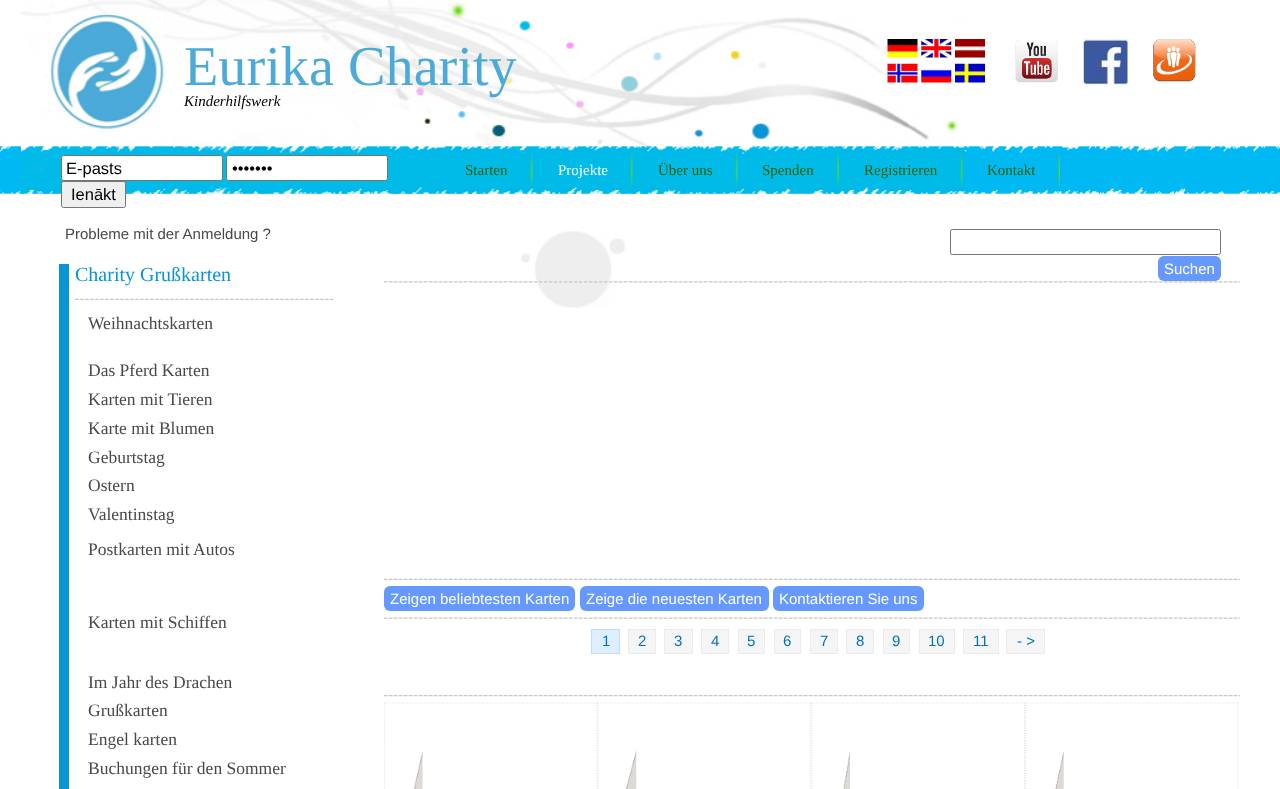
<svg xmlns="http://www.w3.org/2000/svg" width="1280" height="789">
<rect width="100%" height="100%" fill="#fff"/>
<image x="0" y="140" width="1280" height="54" href="media/1.png"/>
<image x="21" y="0" width="946" height="194" href="media/2.png"/>
<text x="184" y="85" style="font-family:Liberation Serif;font-size:56.25px;fill:#4baad9">Eurika Charity</text>
<text x="184" y="106" style="font-family:Liberation Serif;font-size:15px;font-style:italic;fill:#000">Kinderhilfswerk</text>
<image x="887" y="39" width="31" height="19" href="media/3.png"/>
<image x="921" y="39" width="31" height="19" href="media/4.png"/>
<image x="955" y="39" width="30" height="19" href="media/5.png"/>
<image x="1015" y="40" width="43" height="43" href="media/6.png"/>
<image x="1083" y="39" width="45" height="46" href="media/7.png"/>
<image x="1153" y="39" width="43" height="43" href="media/8.png"/>
<image x="887" y="63" width="31" height="20" href="media/9.png"/>
<image x="921" y="69" width="31" height="14" href="media/10.png"/>
<image x="955" y="63" width="30" height="20" href="media/11.png"/>
<rect x="61.5" y="155.5" width="161" height="25" rx="2" fill="#fff" stroke="#767676"/>
<text x="66" y="174" style="font-family:Liberation Sans;font-size:16.5px;fill:#000">E-pasts</text>
<rect x="226.5" y="155.5" width="161" height="25" rx="2" fill="#fff" stroke="#767676"/>
<text x="232" y="174" style="font-family:Liberation Sans;font-size:16.5px;fill:#000">•••••••</text>
<rect x="61.5" y="181.5" width="64" height="26" rx="2" fill="#efefef" stroke="#767676"/>
<text x="71" y="200" style="font-family:Liberation Sans;font-size:16.5px;fill:#000">Ienākt</text>
<image x="530" y="152" width="3" height="36" href="media/12.png"/>
<text x="465" y="175" style="font-family:Liberation Serif;font-size:15px;fill:#2a5f00">Starten</text>
<image x="630" y="152" width="3" height="36" href="media/13.png"/>
<text x="558" y="175" style="font-family:Liberation Serif;font-size:15px;fill:#fff">Projekte</text>
<image x="735" y="152" width="3" height="36" href="media/14.png"/>
<text x="658" y="175" style="font-family:Liberation Serif;font-size:15px;fill:#2a5f00">Über uns</text>
<image x="836" y="152" width="3" height="36" href="media/15.png"/>
<text x="762" y="175" style="font-family:Liberation Serif;font-size:15px;fill:#2a5f00">Spenden</text>
<image x="960" y="152" width="3" height="36" href="media/16.png"/>
<text x="864" y="175" style="font-family:Liberation Serif;font-size:15px;fill:#2a5f00">Registrieren</text>
<image x="1057" y="152" width="3" height="36" href="media/17.png"/>
<text x="987" y="175" style="font-family:Liberation Serif;font-size:15px;fill:#2a5f00">Kontakt</text>
<text x="65" y="239" style="font-family:Liberation Sans;font-size:15px;fill:#494949">Probleme mit der Anmeldung ?</text>
<rect x="59" y="264" width="10" height="525" fill="#0895d6"/>
<text x="75" y="281" style="font-family:Liberation Serif;font-size:20px;fill:#0895d6">Charity Grußkarten</text>
<image x="75" y="298" width="259" height="2" href="media/18.png"/>
<text x="88" y="329" style="font-family:Liberation Serif;font-size:17.5px;fill:#494949">Weihnachtskarten</text>
<text x="88" y="376" style="font-family:Liberation Serif;font-size:17.5px;fill:#494949">Das Pferd Karten</text>
<text x="88" y="405" style="font-family:Liberation Serif;font-size:17.5px;fill:#494949">Karten mit Tieren</text>
<text x="88" y="434" style="font-family:Liberation Serif;font-size:17.5px;fill:#494949">Karte mit Blumen</text>
<text x="88" y="463" style="font-family:Liberation Serif;font-size:17.5px;fill:#494949">Geburtstag</text>
<text x="88" y="491" style="font-family:Liberation Serif;font-size:17.5px;fill:#494949">Ostern</text>
<text x="88" y="520" style="font-family:Liberation Serif;font-size:17.5px;fill:#494949">Valentinstag</text>
<text x="88" y="555" style="font-family:Liberation Serif;font-size:17.5px;fill:#494949">Postkarten mit Autos</text>
<text x="88" y="628" style="font-family:Liberation Serif;font-size:17.5px;fill:#494949">Karten mit Schiffen</text>
<text x="88" y="688" style="font-family:Liberation Serif;font-size:17.5px;fill:#494949">Im Jahr des Drachen</text>
<text x="88" y="716" style="font-family:Liberation Serif;font-size:17.5px;fill:#494949">Grußkarten</text>
<text x="88" y="745" style="font-family:Liberation Serif;font-size:17.5px;fill:#494949">Engel karten</text>
<text x="88" y="774" style="font-family:Liberation Serif;font-size:17.5px;fill:#494949">Buchungen für den Sommer</text>
<image x="521" y="231" width="104" height="77" href="media/19.png"/>
<rect x="950.5" y="229.5" width="270" height="25" rx="2" fill="none" stroke="#767676"/>
<rect x="1158" y="256" width="63" height="25" rx="6" fill="#69f"/>
<text x="1164" y="274" style="font-family:Liberation Sans;font-size:15px;fill:#fff">Suchen</text>
<image x="384" y="281" width="856" height="2" href="media/20.png"/>
<image x="383" y="578" width="857" height="2" href="media/21.png"/>
<rect x="384" y="586" width="191" height="25" rx="6" fill="#69f"/>
<text x="390" y="604" style="font-family:Liberation Sans;font-size:15px;fill:#fff">Zeigen beliebtesten Karten</text>
<rect x="580" y="586" width="189" height="25" rx="6" fill="#69f"/>
<text x="586" y="604" style="font-family:Liberation Sans;font-size:15px;fill:#fff">Zeige die neuesten Karten</text>
<rect x="773" y="586" width="151" height="25" rx="6" fill="#69f"/>
<text x="779" y="604" style="font-family:Liberation Sans;font-size:15px;fill:#fff">Kontaktieren Sie uns</text>
<image x="384" y="617" width="856" height="2" href="media/22.png"/>
<rect x="591.5" y="629.5" width="28" height="24" fill="#def" stroke="#bdf"/>
<text x="602" y="646" style="font-family:Liberation Sans;font-size:15px;fill:#0072bc">1</text>
<rect x="628.5" y="629.5" width="27" height="24" fill="#f5f5f5" stroke="#ebebeb"/>
<text x="638" y="646" style="font-family:Liberation Sans;font-size:15px;fill:#0072bc">2</text>
<rect x="664.5" y="629.5" width="28" height="24" fill="#f5f5f5" stroke="#ebebeb"/>
<text x="674" y="646" style="font-family:Liberation Sans;font-size:15px;fill:#0072bc">3</text>
<rect x="701.5" y="629.5" width="27" height="24" fill="#f5f5f5" stroke="#ebebeb"/>
<text x="711" y="646" style="font-family:Liberation Sans;font-size:15px;fill:#0072bc">4</text>
<rect x="738.5" y="629.5" width="26" height="24" fill="#f5f5f5" stroke="#ebebeb"/>
<text x="747" y="646" style="font-family:Liberation Sans;font-size:15px;fill:#0072bc">5</text>
<rect x="774.5" y="629.5" width="26" height="24" fill="#f5f5f5" stroke="#ebebeb"/>
<text x="783" y="646" style="font-family:Liberation Sans;font-size:15px;fill:#0072bc">6</text>
<rect x="810.5" y="629.5" width="27" height="24" fill="#f5f5f5" stroke="#ebebeb"/>
<text x="820" y="646" style="font-family:Liberation Sans;font-size:15px;fill:#0072bc">7</text>
<rect x="846.5" y="629.5" width="27" height="24" fill="#f5f5f5" stroke="#ebebeb"/>
<text x="856" y="646" style="font-family:Liberation Sans;font-size:15px;fill:#0072bc">8</text>
<rect x="883.5" y="629.5" width="26" height="24" fill="#f5f5f5" stroke="#ebebeb"/>
<text x="892" y="646" style="font-family:Liberation Sans;font-size:15px;fill:#0072bc">9</text>
<rect x="919.5" y="629.5" width="35" height="24" fill="#f5f5f5" stroke="#ebebeb"/>
<text x="928" y="646" style="font-family:Liberation Sans;font-size:15px;fill:#0072bc">10</text>
<rect x="963.5" y="629.5" width="35" height="24" fill="#f5f5f5" stroke="#ebebeb"/>
<text x="973" y="646" style="font-family:Liberation Sans;font-size:15px;fill:#0072bc">11</text>
<rect x="1006.5" y="629.5" width="38" height="24" fill="#f5f5f5" stroke="#ebebeb"/>
<text x="1017" y="646" style="font-family:Liberation Sans;font-size:15px;fill:#0072bc">- &gt;</text>
<image x="383" y="695" width="857" height="2" href="media/23.png"/>
<path d="M384 703h213.5" fill="none" stroke="#e8e8e8" stroke-width="1.2" stroke-dasharray="1.25 1.25"/>
<path d="M597 702.5v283.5" fill="none" stroke="#e8e8e8" stroke-width="1.2" stroke-dasharray="1.25 1.25"/>
<path d="M384.5 702.5v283.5" fill="none" stroke="#e8e8e8" stroke-width="1.2" stroke-dasharray="1.25 1.25"/>
<image x="414" y="751" width="9" height="38" href="media/24.png"/>
<path d="M597.5 703h213.5" fill="none" stroke="#e8e8e8" stroke-width="1.2" stroke-dasharray="1.25 1.25"/>
<path d="M810.5 702.5v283.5" fill="none" stroke="#e8e8e8" stroke-width="1.2" stroke-dasharray="1.25 1.25"/>
<path d="M598 702.5v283.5" fill="none" stroke="#e8e8e8" stroke-width="1.2" stroke-dasharray="1.25 1.25"/>
<image x="626" y="751" width="11" height="38" href="media/25.png"/>
<path d="M811 703h214" fill="none" stroke="#e8e8e8" stroke-width="1.2" stroke-dasharray="1.25 1.25"/>
<path d="M1024.5 702.5v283.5" fill="none" stroke="#e8e8e8" stroke-width="1.2" stroke-dasharray="1.25 1.25"/>
<path d="M812 702.5v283.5" fill="none" stroke="#e8e8e8" stroke-width="1.2" stroke-dasharray="1.25 1.25"/>
<image x="843" y="752" width="7" height="37" href="media/26.png"/>
<path d="M1025 703h214" fill="none" stroke="#e8e8e8" stroke-width="1.2" stroke-dasharray="1.25 1.25"/>
<path d="M1238 702.5v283.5" fill="none" stroke="#e8e8e8" stroke-width="1.2" stroke-dasharray="1.25 1.25"/>
<path d="M1025.5 702.5v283.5" fill="none" stroke="#e8e8e8" stroke-width="1.2" stroke-dasharray="1.25 1.25"/>
<image x="1055" y="751" width="9" height="38" href="media/27.png"/>
</svg>
